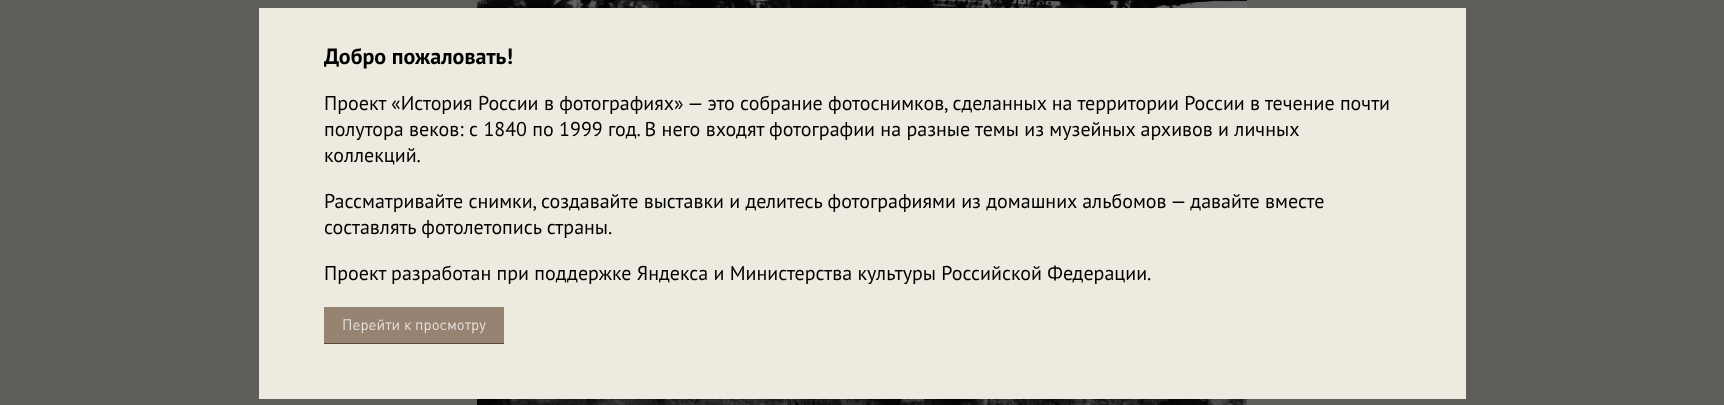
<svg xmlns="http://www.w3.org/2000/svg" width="1724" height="405">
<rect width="100%" height="100%" fill="#5f5e5a"/>
<image x="477" y="0" width="770" height="405" href="media/1.png"/>
<rect x="259" y="8" width="1207" height="391" fill="#edeadf"/>
<text x="324" y="64" style="font-family:PT Sans;font-size:22px;font-weight:bold;fill:#000">Добро пожаловать!</text>
<text x="324" y="110" style="font-family:PT Sans;font-size:20px;fill:#000">Проект «История России в фотографиях» — это собрание фотоснимков, сделанных на территории России в течение почти</text>
<text x="324" y="136" style="font-family:PT Sans;font-size:20px;fill:#000">полутора веков: с 1840 по 1999 год. В него входят фотографии на разные темы из музейных архивов и личных</text>
<text x="324" y="162" style="font-family:PT Sans;font-size:20px;fill:#000">коллекций.</text>
<text x="324" y="208" style="font-family:PT Sans;font-size:20px;fill:#000">Рассматривайте снимки, создавайте выставки и делитесь фотографиями из домашних альбомов — давайте вместе</text>
<text x="324" y="234" style="font-family:PT Sans;font-size:20px;fill:#000">составлять фотолетопись страны.</text>
<text x="324" y="280" style="font-family:PT Sans;font-size:20px;fill:#000">Проект разработан при поддержке Яндекса и Министерства культуры Российской Федерации.</text>
<rect x="324" y="307" width="180" height="36" fill="#978372"/>
<rect x="324" y="343" width="180" height="1" fill="#5c4539"/>
<text x="342" y="330" style="font-family:DIN;font-size:15px;fill:#e5e0dc">Перейти к просмотру</text>
</svg>
